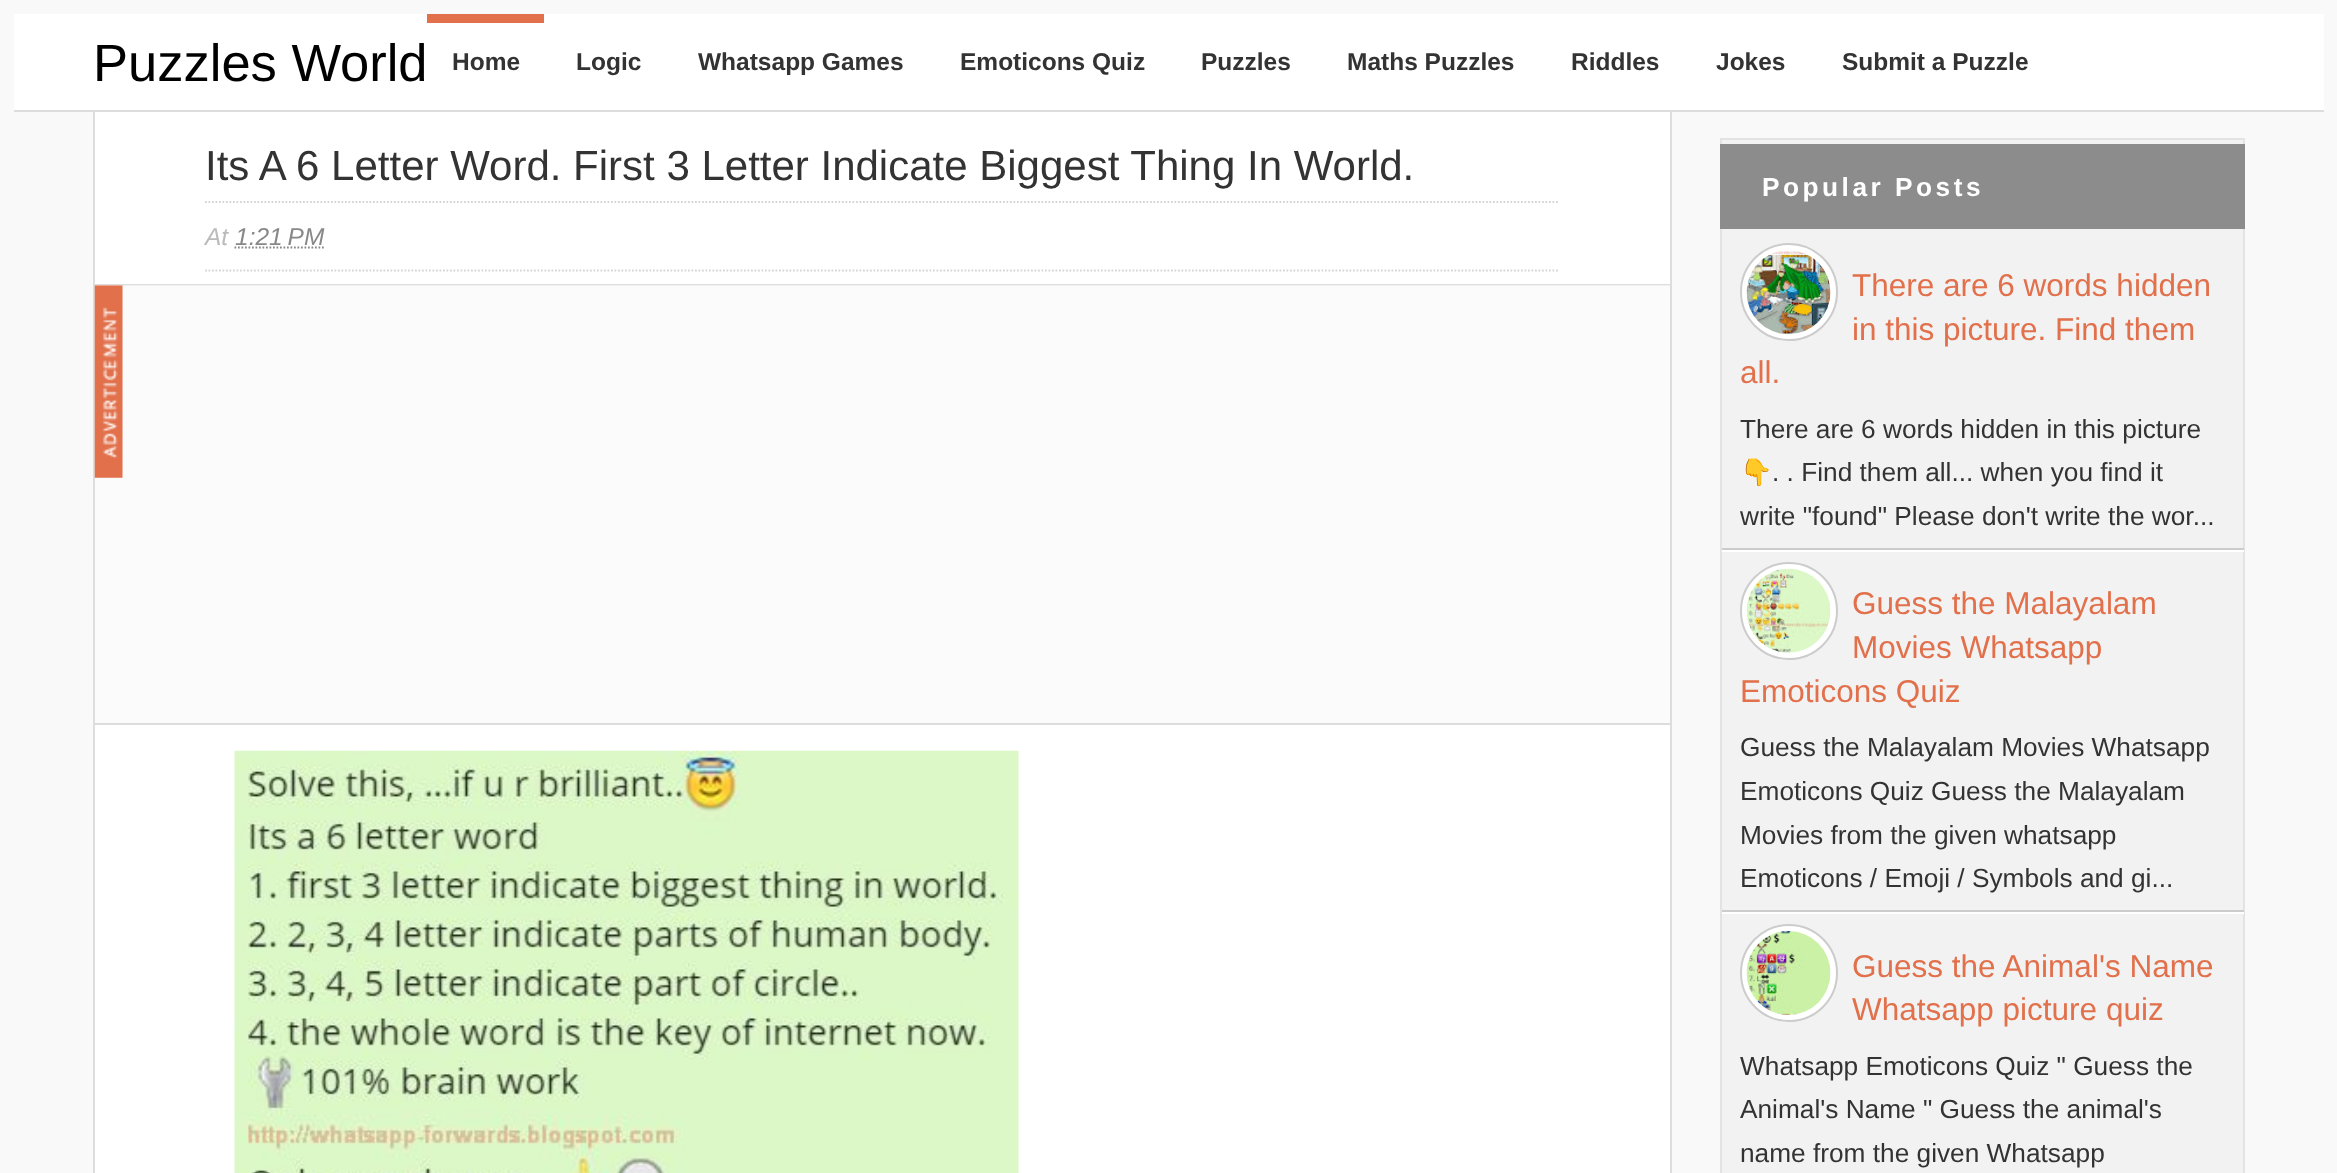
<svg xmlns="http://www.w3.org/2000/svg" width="2337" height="1173">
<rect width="100%" height="100%" fill="#f9f9f9"/>
<rect x="14" y="14" width="2310" height="96" fill="#fff"/>
<rect x="14" y="110" width="2310" height="2" fill="#ddd"/>
<text x="93" y="81" style="font-family:Liberation Sans;font-size:52.5px;fill:#000">Puzzles World</text>
<rect x="427" y="14" width="117" height="9" fill="#e1704b"/>
<text x="452" y="70" style="font-family:Liberation Sans;font-size:24.5px;font-weight:bold;fill:#333">Home</text>
<text x="576" y="70" style="font-family:Liberation Sans;font-size:24.5px;font-weight:bold;fill:#333">Logic</text>
<text x="698" y="70" style="font-family:Liberation Sans;font-size:24.5px;font-weight:bold;fill:#333">Whatsapp Games</text>
<text x="960" y="70" style="font-family:Liberation Sans;font-size:24.5px;font-weight:bold;fill:#333">Emoticons Quiz</text>
<text x="1201" y="70" style="font-family:Liberation Sans;font-size:24.5px;font-weight:bold;fill:#333">Puzzles</text>
<text x="1347" y="70" style="font-family:Liberation Sans;font-size:24.5px;font-weight:bold;fill:#333">Maths Puzzles</text>
<text x="1571" y="70" style="font-family:Liberation Sans;font-size:24.5px;font-weight:bold;fill:#333">Riddles</text>
<text x="1716" y="70" style="font-family:Liberation Sans;font-size:24.5px;font-weight:bold;fill:#333">Jokes</text>
<text x="1842" y="70" style="font-family:Liberation Sans;font-size:24.5px;font-weight:bold;fill:#333">Submit a Puzzle</text>
<rect x="95" y="112" width="1575" height="1061" fill="#fff"/>
<rect x="1670" y="112" width="2" height="1061" fill="#ddd"/>
<rect x="93" y="112" width="2" height="1061" fill="#ddd"/>
<text x="205" y="180" style="font-family:Liberation Sans;font-size:42px;fill:#333">Its A 6 Letter Word. First 3 Letter Indicate Biggest Thing In World.</text>
<path d="M205 202h1354" fill="none" stroke="#d5d5d5" stroke-width="1.8" stroke-dasharray="1.75 1.75"/>
<path d="M205 270.5h1354" fill="none" stroke="#d5d5d5" stroke-width="1.8" stroke-dasharray="1.75 1.75"/>
<text x="205" y="245" style="font-family:Liberation Sans;font-size:24.5px;font-style:italic;fill:#bbb">At</text>
<text x="235" y="245" style="font-family:Liberation Sans;font-size:24.5px;font-style:italic;fill:#888">1:21 PM</text>
<path d="M234.5 247.5h89.5" fill="none" stroke="#888" stroke-width="1.8" stroke-dasharray="1.75 1.75"/>
<rect x="95" y="286" width="1575" height="437" fill="#fbfbfb"/>
<rect x="95" y="284" width="1575" height="1" fill="#ddd"/>
<rect x="95" y="285" width="1575" height="1" fill="#f1f1f1"/>
<rect x="95" y="723" width="1575" height="2" fill="#ddd"/>
<image x="94" y="285" width="29" height="193" href="media/1.png"/>
<image x="234" y="750" width="785" height="423" href="media/2.png"/>
<rect x="1721" y="139" width="523" height="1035" fill="#f2f2f2" stroke="#e3e3e3" stroke-width="2"/>
<rect x="1720" y="144" width="525" height="85" fill="#8c8c8c"/>
<text x="1762" y="196" style="font-family:Liberation Sans;font-size:26.25px;font-weight:bold;letter-spacing:3.5px;fill:#fff">Popular Posts</text>
<rect x="1722" y="548" width="522" height="2" fill="#ccc"/>
<circle cx="1789" cy="292" r="48" fill="#fff" stroke="#ccc" stroke-width="2"/>
<image x="1746" y="250" width="85" height="85" href="media/3.png"/>
<text x="1852" y="296" style="font-family:Liberation Sans;font-size:31.5px;fill:#e1704b">There are 6 words hidden</text>
<text x="1852" y="340" style="font-family:Liberation Sans;font-size:31.5px;fill:#e1704b">in this picture. Find them</text>
<text x="1740" y="383" style="font-family:Liberation Sans;font-size:31.5px;fill:#e1704b">all.</text>
<text x="1740" y="438" style="font-family:Liberation Sans;font-size:26.25px;fill:#333">There are 6 words hidden in this picture</text>
<text x="1740" y="481" style="font-family:Noto Color Emoji;font-size:26.25px;fill:#333">👇</text>
<text x="1772" y="481" style="font-family:Liberation Sans;font-size:26.25px;fill:#333">. . Find them all... when you find it</text>
<text x="1740" y="525" style="font-family:Liberation Sans;font-size:26.25px;fill:#333">write "found" Please don't write the wor...</text>
<rect x="1722" y="550" width="522" height="2" fill="#fff"/>
<rect x="1722" y="910" width="522" height="2" fill="#ccc"/>
<circle cx="1789" cy="611" r="48" fill="#fff" stroke="#ccc" stroke-width="2"/>
<image x="1746" y="569" width="85" height="84" href="media/4.png"/>
<text x="1852" y="614" style="font-family:Liberation Sans;font-size:31.5px;fill:#e1704b">Guess the Malayalam</text>
<text x="1852" y="658" style="font-family:Liberation Sans;font-size:31.5px;fill:#e1704b">Movies Whatsapp</text>
<text x="1740" y="702" style="font-family:Liberation Sans;font-size:31.5px;fill:#e1704b">Emoticons Quiz</text>
<text x="1740" y="756" style="font-family:Liberation Sans;font-size:26.25px;fill:#333">Guess the Malayalam Movies Whatsapp</text>
<text x="1740" y="800" style="font-family:Liberation Sans;font-size:26.25px;fill:#333">Emoticons Quiz Guess the Malayalam</text>
<text x="1740" y="844" style="font-family:Liberation Sans;font-size:26.25px;fill:#333">Movies from the given whatsapp</text>
<text x="1740" y="887" style="font-family:Liberation Sans;font-size:26.25px;fill:#333">Emoticons / Emoji / Symbols and gi...</text>
<rect x="1722" y="912" width="522" height="2" fill="#fff"/>
<circle cx="1789" cy="973" r="48" fill="#fff" stroke="#ccc" stroke-width="2"/>
<image x="1746" y="931" width="85" height="84" href="media/5.png"/>
<text x="1852" y="977" style="font-family:Liberation Sans;font-size:31.5px;fill:#e1704b">Guess the Animal's Name</text>
<text x="1852" y="1020" style="font-family:Liberation Sans;font-size:31.5px;fill:#e1704b">Whatsapp picture quiz</text>
<text x="1740" y="1075" style="font-family:Liberation Sans;font-size:26.25px;fill:#333">Whatsapp Emoticons Quiz " Guess the</text>
<text x="1740" y="1118" style="font-family:Liberation Sans;font-size:26.25px;fill:#333">Animal's Name " Guess the animal's</text>
<text x="1740" y="1162" style="font-family:Liberation Sans;font-size:26.25px;fill:#333">name from the given Whatsapp</text>
</svg>
